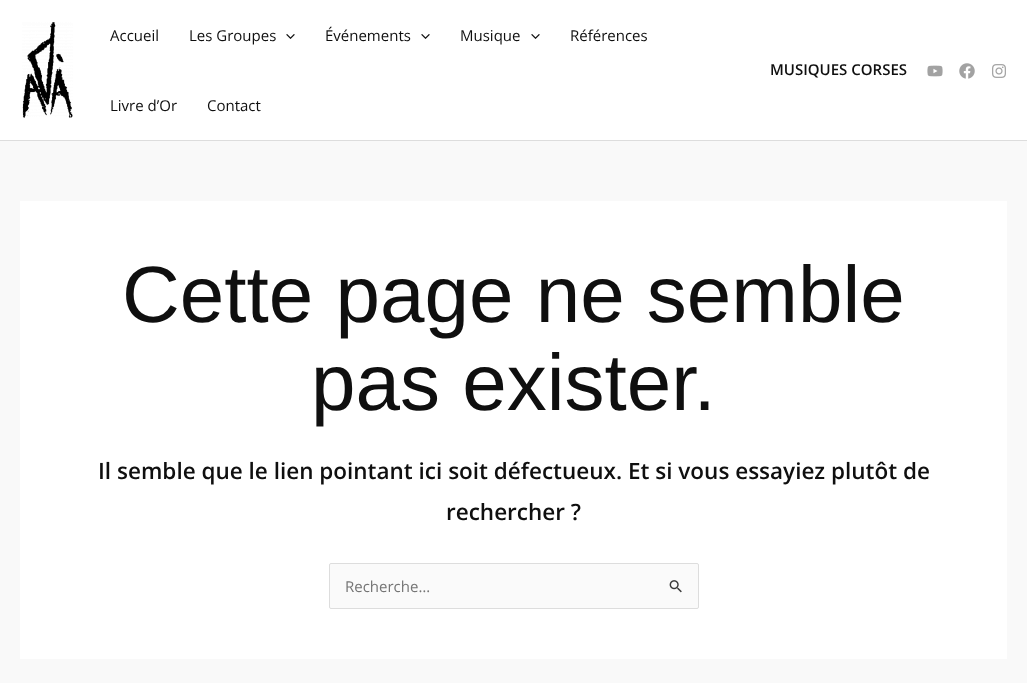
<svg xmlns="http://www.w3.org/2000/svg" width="1027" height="683">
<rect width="100%" height="100%" fill="#f9f9f9"/>
<rect width="1027" height="140" fill="#fff"/>
<rect y="140" width="1027" height="1" fill="#ddd"/>
<image x="22" y="22" width="51" height="96" href="media/1.png"/>
<text x="110" y="41" style="font-family:Open Sans;font-size:15px;fill:#0f0f0f">Accueil</text>
<text x="189" y="41" style="font-family:Open Sans;font-size:15px;fill:#0f0f0f">Les Groupes</text>
<image x="286" y="34" width="9" height="5" href="media/2.png"/>
<text x="325" y="41" style="font-family:Open Sans;font-size:15px;fill:#0f0f0f">Événements</text>
<image x="421" y="34" width="9" height="5" href="media/2.png"/>
<text x="460" y="41" style="font-family:Open Sans;font-size:15px;fill:#0f0f0f">Musique</text>
<image x="531" y="34" width="9" height="5" href="media/2.png"/>
<text x="570" y="41" style="font-family:Open Sans;font-size:15px;fill:#0f0f0f">Références</text>
<text x="110" y="111" style="font-family:Open Sans;font-size:15px;fill:#0f0f0f">Livre d’Or</text>
<text x="207" y="111" style="font-family:Open Sans;font-size:15px;fill:#0f0f0f">Contact</text>
<text x="770" y="75" style="font-family:Open Sans;font-size:15px;font-weight:600;fill:#0f0f0f">MUSIQUES CORSES</text>
<image x="927" y="65" width="16" height="12" href="media/3.png"/>
<image x="959" y="63" width="16" height="16" href="media/4.png"/>
<image x="992" y="64" width="14" height="14" href="media/5.png"/>
<rect x="20" y="201" width="987" height="458" fill="#fff"/>
<text x="122" y="322" style="font-family:Liberation Sans;font-size:80px;fill:#0f0f0f">Cette page ne semble</text>
<text x="311" y="410" style="font-family:Liberation Sans;font-size:80px;fill:#0f0f0f">pas exister.</text>
<text x="98" y="479" style="font-family:Open Sans;font-size:22.5px;font-weight:600;fill:#0f0f0f">Il semble que le lien pointant ici soit défectueux. Et si vous essayiez plutôt de</text>
<text x="446" y="520" style="font-family:Open Sans;font-size:22.5px;font-weight:600;fill:#0f0f0f">rechercher ?</text>
<rect x="329.5" y="563.5" width="369" height="45" rx="1.5" fill="#fafafa" stroke="#ddd"/>
<text x="345" y="592" style="font-family:Open Sans;font-size:15px;fill:#757575">Recherche…</text>
<image x="669" y="580" width="13" height="13" href="media/6.png"/>
</svg>
